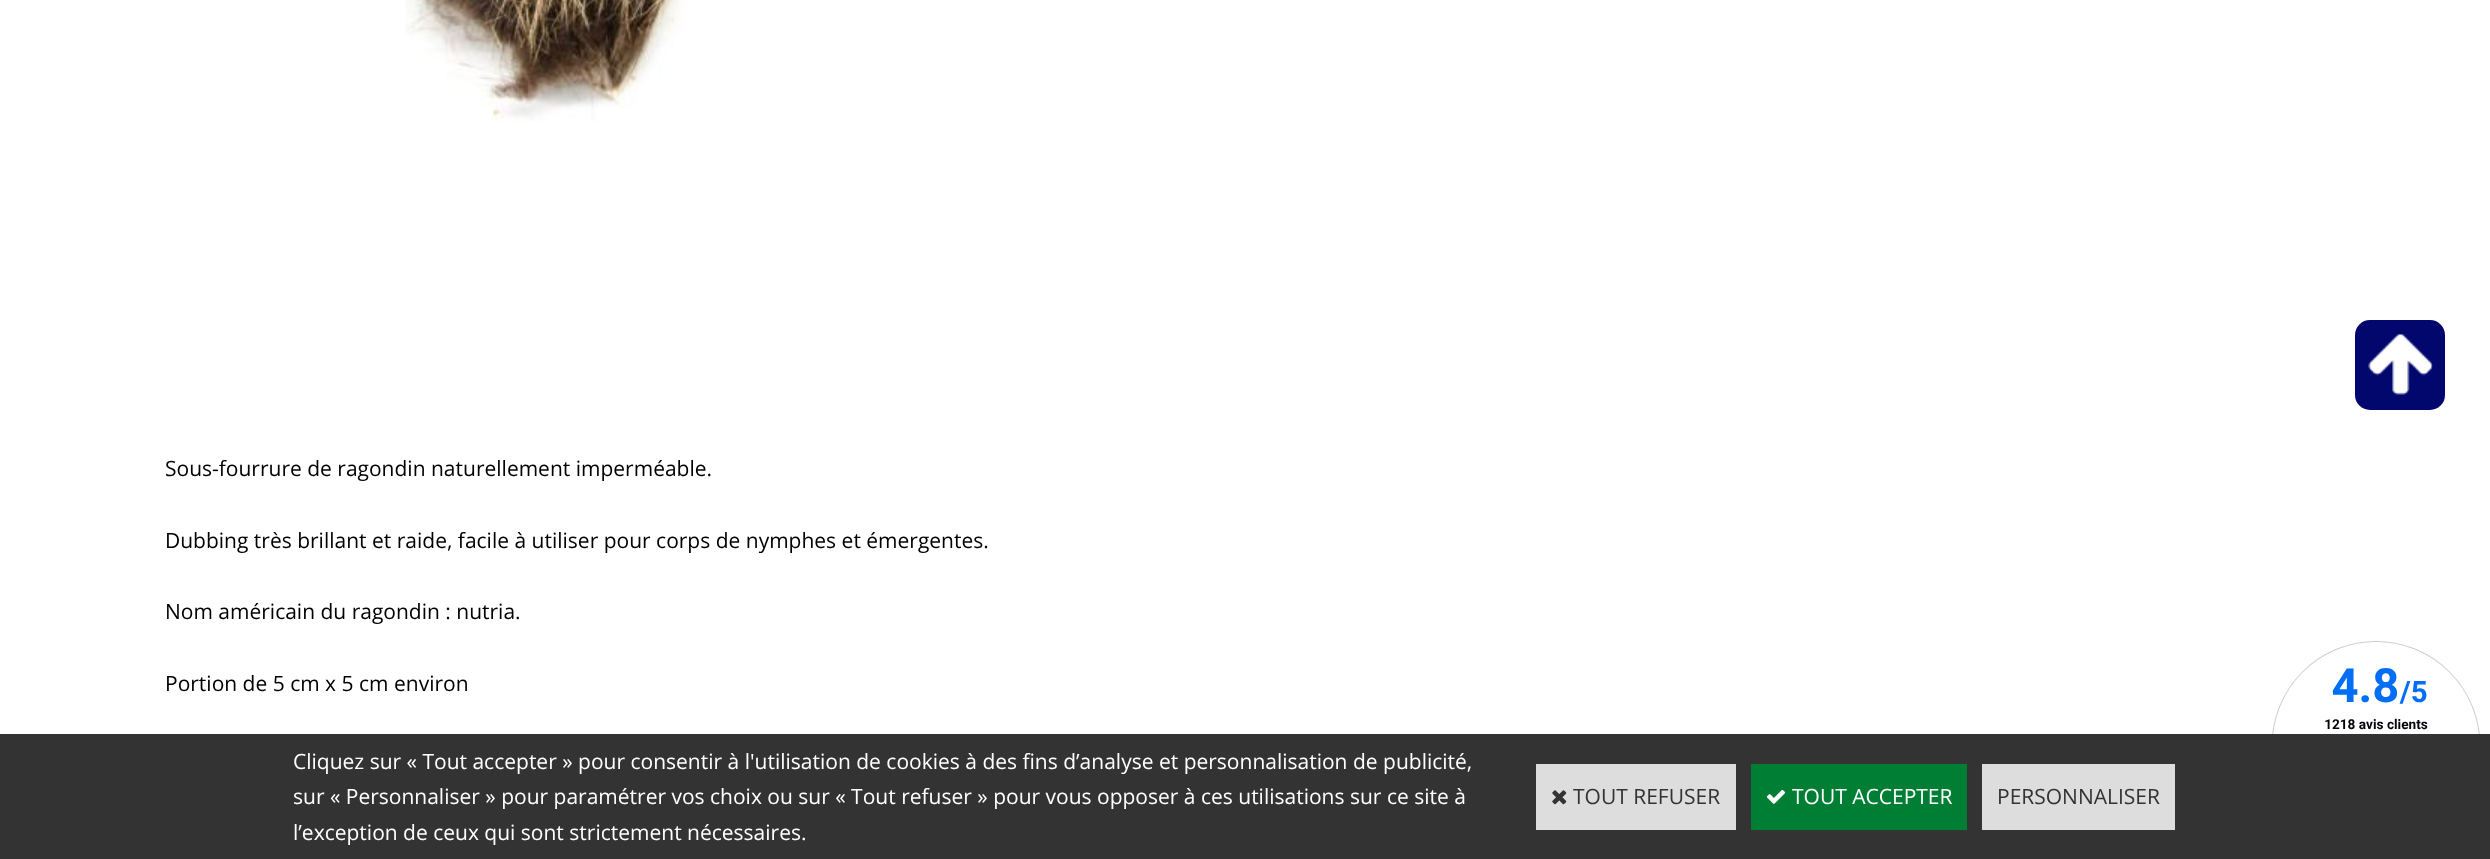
<svg xmlns="http://www.w3.org/2000/svg" width="2490" height="859">
<rect width="100%" height="100%" fill="#fff"/>
<rect x="2355" y="320" width="90" height="90" rx="15" fill="#02076d"/>
<image x="2368" y="334" width="65" height="61" href="media/1.png"/>
<image x="405" y="0" width="280" height="122" href="media/2.png"/>
<text x="165" y="476" style="font-family:Open Sans;font-size:21px;fill:#000">Sous-fourrure de ragondin naturellement imperméable.</text>
<text x="165" y="548" style="font-family:Open Sans;font-size:21px;fill:#000">Dubbing très brillant et raide, facile à utiliser pour corps de nymphes et émergentes.</text>
<text x="165" y="619" style="font-family:Open Sans;font-size:21px;fill:#000">Nom américain du ragondin : nutria.</text>
<text x="165" y="691" style="font-family:Open Sans;font-size:21px;fill:#000">Portion de 5 cm x 5 cm environ</text>
<rect y="734" width="2490" height="125" fill="#333"/>
<text x="293" y="769" style="font-family:Open Sans;font-size:21px;fill:#fff">Cliquez sur « Tout accepter » pour consentir à l'utilisation de cookies à des fins d’analyse et personnalisation de publicité,</text>
<text x="293" y="804" style="font-family:Open Sans;font-size:21px;fill:#fff">sur « Personnaliser » pour paramétrer vos choix ou sur « Tout refuser » pour vous opposer à ces utilisations sur ce site à</text>
<text x="293" y="840" style="font-family:Open Sans;font-size:21px;fill:#fff">l’exception de ceux qui sont strictement nécessaires.</text>
<rect x="1536" y="764" width="200" height="66" fill="#ddd"/>
<image x="1552" y="790" width="15" height="15" href="media/3.png"/>
<text x="1573" y="804" style="font-family:Open Sans;font-size:21px;fill:#333">TOUT REFUSER</text>
<rect x="1751" y="764" width="216" height="66" fill="#007e33"/>
<image x="1766" y="789" width="20" height="15" href="media/4.png"/>
<text x="1792" y="804" style="font-family:Open Sans;font-size:21px;fill:#fff">TOUT ACCEPTER</text>
<rect x="1982" y="764" width="193" height="66" fill="#ddd"/>
<text x="1997" y="804" style="font-family:Open Sans;font-size:21px;fill:#333">PERSONNALISER</text>
<image x="2272" y="641" width="208" height="93" href="media/5.png"/>
</svg>
